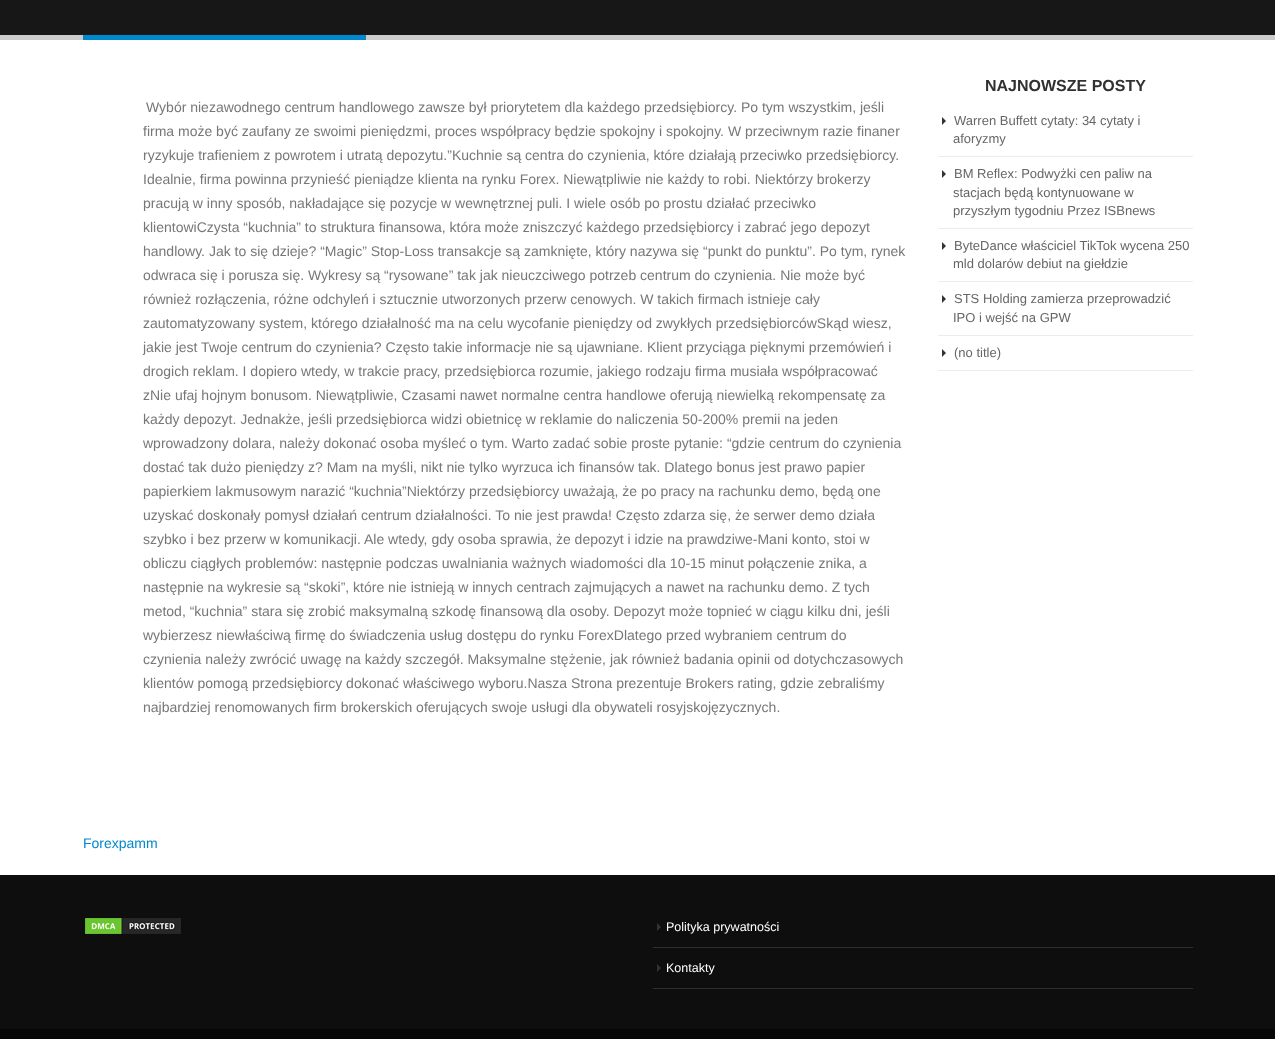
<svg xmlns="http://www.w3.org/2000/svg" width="1275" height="1039">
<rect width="100%" height="100%" fill="#fff"/>
<rect width="1275" height="35" fill="#171717"/>
<rect y="35" width="1275" height="5" fill="#ccc"/>
<rect x="83" y="35" width="283" height="5" fill="#08c"/>
<text x="146" y="112" style="font-family:Liberation Sans;font-size:14px;fill:#777">Wybór niezawodnego centrum handlowego zawsze był priorytetem dla każdego przedsiębiorcy. Po tym wszystkim, jeśli</text>
<text x="143" y="136" style="font-family:Liberation Sans;font-size:14px;fill:#777">firma może być zaufany ze swoimi pieniędzmi, proces współpracy będzie spokojny i spokojny. W przeciwnym razie finaner</text>
<text x="143" y="160" style="font-family:Liberation Sans;font-size:14px;fill:#777">ryzykuje trafieniem z powrotem i utratą depozytu.”Kuchnie są centra do czynienia, które działają przeciwko przedsiębiorcy.</text>
<text x="143" y="184" style="font-family:Liberation Sans;font-size:14px;fill:#777">Idealnie, firma powinna przynieść pieniądze klienta na rynku Forex. Niewątpliwie nie każdy to robi. Niektórzy brokerzy</text>
<text x="143" y="208" style="font-family:Liberation Sans;font-size:14px;fill:#777">pracują w inny sposób, nakładające się pozycje w wewnętrznej puli. I wiele osób po prostu działać przeciwko</text>
<text x="143" y="232" style="font-family:Liberation Sans;font-size:14px;fill:#777">klientowiCzysta “kuchnia” to struktura finansowa, która może zniszczyć każdego przedsiębiorcy i zabrać jego depozyt</text>
<text x="143" y="256" style="font-family:Liberation Sans;font-size:14px;fill:#777">handlowy. Jak to się dzieje? “Magic” Stop-Loss transakcje są zamknięte, który nazywa się “punkt do punktu”. Po tym, rynek</text>
<text x="143" y="280" style="font-family:Liberation Sans;font-size:14px;fill:#777">odwraca się i porusza się. Wykresy są “rysowane” tak jak nieuczciwego potrzeb centrum do czynienia. Nie może być</text>
<text x="143" y="304" style="font-family:Liberation Sans;font-size:14px;fill:#777">również rozłączenia, różne odchyleń i sztucznie utworzonych przerw cenowych. W takich firmach istnieje cały</text>
<text x="143" y="328" style="font-family:Liberation Sans;font-size:14px;fill:#777">zautomatyzowany system, którego działalność ma na celu wycofanie pieniędzy od zwykłych przedsiębiorcówSkąd wiesz,</text>
<text x="143" y="352" style="font-family:Liberation Sans;font-size:14px;fill:#777">jakie jest Twoje centrum do czynienia? Często takie informacje nie są ujawniane. Klient przyciąga pięknymi przemówień i</text>
<text x="143" y="376" style="font-family:Liberation Sans;font-size:14px;fill:#777">drogich reklam. I dopiero wtedy, w trakcie pracy, przedsiębiorca rozumie, jakiego rodzaju firma musiała współpracować</text>
<text x="143" y="400" style="font-family:Liberation Sans;font-size:14px;fill:#777">zNie ufaj hojnym bonusom. Niewątpliwie, Czasami nawet normalne centra handlowe oferują niewielką rekompensatę za</text>
<text x="143" y="424" style="font-family:Liberation Sans;font-size:14px;fill:#777">każdy depozyt. Jednakże, jeśli przedsiębiorca widzi obietnicę w reklamie do naliczenia 50-200% premii na jeden</text>
<text x="143" y="448" style="font-family:Liberation Sans;font-size:14px;fill:#777">wprowadzony dolara, należy dokonać osoba myśleć o tym. Warto zadać sobie proste pytanie: “gdzie centrum do czynienia</text>
<text x="143" y="472" style="font-family:Liberation Sans;font-size:14px;fill:#777">dostać tak dużo pieniędzy z? Mam na myśli, nikt nie tylko wyrzuca ich finansów tak. Dlatego bonus jest prawo papier</text>
<text x="143" y="496" style="font-family:Liberation Sans;font-size:14px;fill:#777">papierkiem lakmusowym narazić “kuchnia”Niektórzy przedsiębiorcy uważają, że po pracy na rachunku demo, będą one</text>
<text x="143" y="520" style="font-family:Liberation Sans;font-size:14px;fill:#777">uzyskać doskonały pomysł działań centrum działalności. To nie jest prawda! Często zdarza się, że serwer demo działa</text>
<text x="143" y="544" style="font-family:Liberation Sans;font-size:14px;fill:#777">szybko i bez przerw w komunikacji. Ale wtedy, gdy osoba sprawia, że depozyt i idzie na prawdziwe-Mani konto, stoi w</text>
<text x="143" y="568" style="font-family:Liberation Sans;font-size:14px;fill:#777">obliczu ciągłych problemów: następnie podczas uwalniania ważnych wiadomości dla 10-15 minut połączenie znika, a</text>
<text x="143" y="592" style="font-family:Liberation Sans;font-size:14px;fill:#777">następnie na wykresie są “skoki”, które nie istnieją w innych centrach zajmujących a nawet na rachunku demo. Z tych</text>
<text x="143" y="616" style="font-family:Liberation Sans;font-size:14px;fill:#777">metod, “kuchnia” stara się zrobić maksymalną szkodę finansową dla osoby. Depozyt może topnieć w ciągu kilku dni, jeśli</text>
<text x="143" y="640" style="font-family:Liberation Sans;font-size:14px;fill:#777">wybierzesz niewłaściwą firmę do świadczenia usług dostępu do rynku ForexDlatego przed wybraniem centrum do</text>
<text x="143" y="664" style="font-family:Liberation Sans;font-size:14px;fill:#777">czynienia należy zwrócić uwagę na każdy szczegół. Maksymalne stężenie, jak również badania opinii od dotychczasowych</text>
<text x="143" y="688" style="font-family:Liberation Sans;font-size:14px;fill:#777">klientów pomogą przedsiębiorcy dokonać właściwego wyboru.Nasza Strona prezentuje Brokers rating, gdzie zebraliśmy</text>
<text x="143" y="712" style="font-family:Liberation Sans;font-size:14px;fill:#777">najbardziej renomowanych firm brokerskich oferujących swoje usługi dla obywateli rosyjskojęzycznych.</text>
<text x="985" y="91" style="font-family:Liberation Sans;font-size:16px;font-weight:bold;fill:#313131">NAJNOWSZE POSTY</text>
<rect x="938" y="370" width="255" height="1" fill="#ededed"/>
<path d="M942 125v-8l4 4z" fill="#333"/>
<text x="954" y="125" style="font-family:Liberation Sans;font-size:13px;fill:#666">Warren Buffett cytaty: 34 cytaty i</text>
<text x="953" y="143" style="font-family:Liberation Sans;font-size:13px;fill:#666">aforyzmy</text>
<rect x="938" y="156" width="255" height="1" fill="#ededed"/>
<path d="M942 178v-8l4 4z" fill="#333"/>
<text x="954" y="178" style="font-family:Liberation Sans;font-size:13px;fill:#666">BM Reflex: Podwyżki cen paliw na</text>
<text x="953" y="197" style="font-family:Liberation Sans;font-size:13px;fill:#666">stacjach będą kontynuowane w</text>
<text x="953" y="215" style="font-family:Liberation Sans;font-size:13px;fill:#666">przyszłym tygodniu Przez ISBnews</text>
<rect x="938" y="228" width="255" height="1" fill="#ededed"/>
<path d="M942 250v-8l4 4z" fill="#333"/>
<text x="954" y="250" style="font-family:Liberation Sans;font-size:13px;fill:#666">ByteDance właściciel TikTok wycena 250</text>
<text x="953" y="268" style="font-family:Liberation Sans;font-size:13px;fill:#666">mld dolarów debiut na giełdzie</text>
<rect x="938" y="281" width="255" height="1" fill="#ededed"/>
<path d="M942 303v-8l4 4z" fill="#333"/>
<text x="954" y="303" style="font-family:Liberation Sans;font-size:13px;fill:#666">STS Holding zamierza przeprowadzić</text>
<text x="953" y="322" style="font-family:Liberation Sans;font-size:13px;fill:#666">IPO i wejść na GPW</text>
<rect x="938" y="335" width="255" height="1" fill="#ededed"/>
<path d="M942 357v-8l4 4z" fill="#333"/>
<text x="954" y="357" style="font-family:Liberation Sans;font-size:13px;fill:#666">(no title)</text>
<text x="83" y="848" style="font-family:Liberation Sans;font-size:14px;fill:#08c">Forexpamm</text>
<rect y="875" width="1275" height="154" fill="#0e0e0e"/>
<image x="85" y="918" width="96" height="16" href="media/1.png"/>
<rect x="653" y="988" width="540" height="1" fill="#2e2e2e"/>
<path d="M657 931v-8l4 4z" fill="#333"/>
<text x="666" y="931" style="font-family:Liberation Sans;font-size:12.5px;fill:#fff">Polityka prywatności</text>
<rect x="653" y="947" width="540" height="1" fill="#2e2e2e"/>
<path d="M657 972v-8l4 4z" fill="#333"/>
<text x="666" y="972" style="font-family:Liberation Sans;font-size:12.5px;fill:#fff">Kontakty</text>
<rect y="1029" width="1275" height="10" fill="#060606"/>
</svg>
